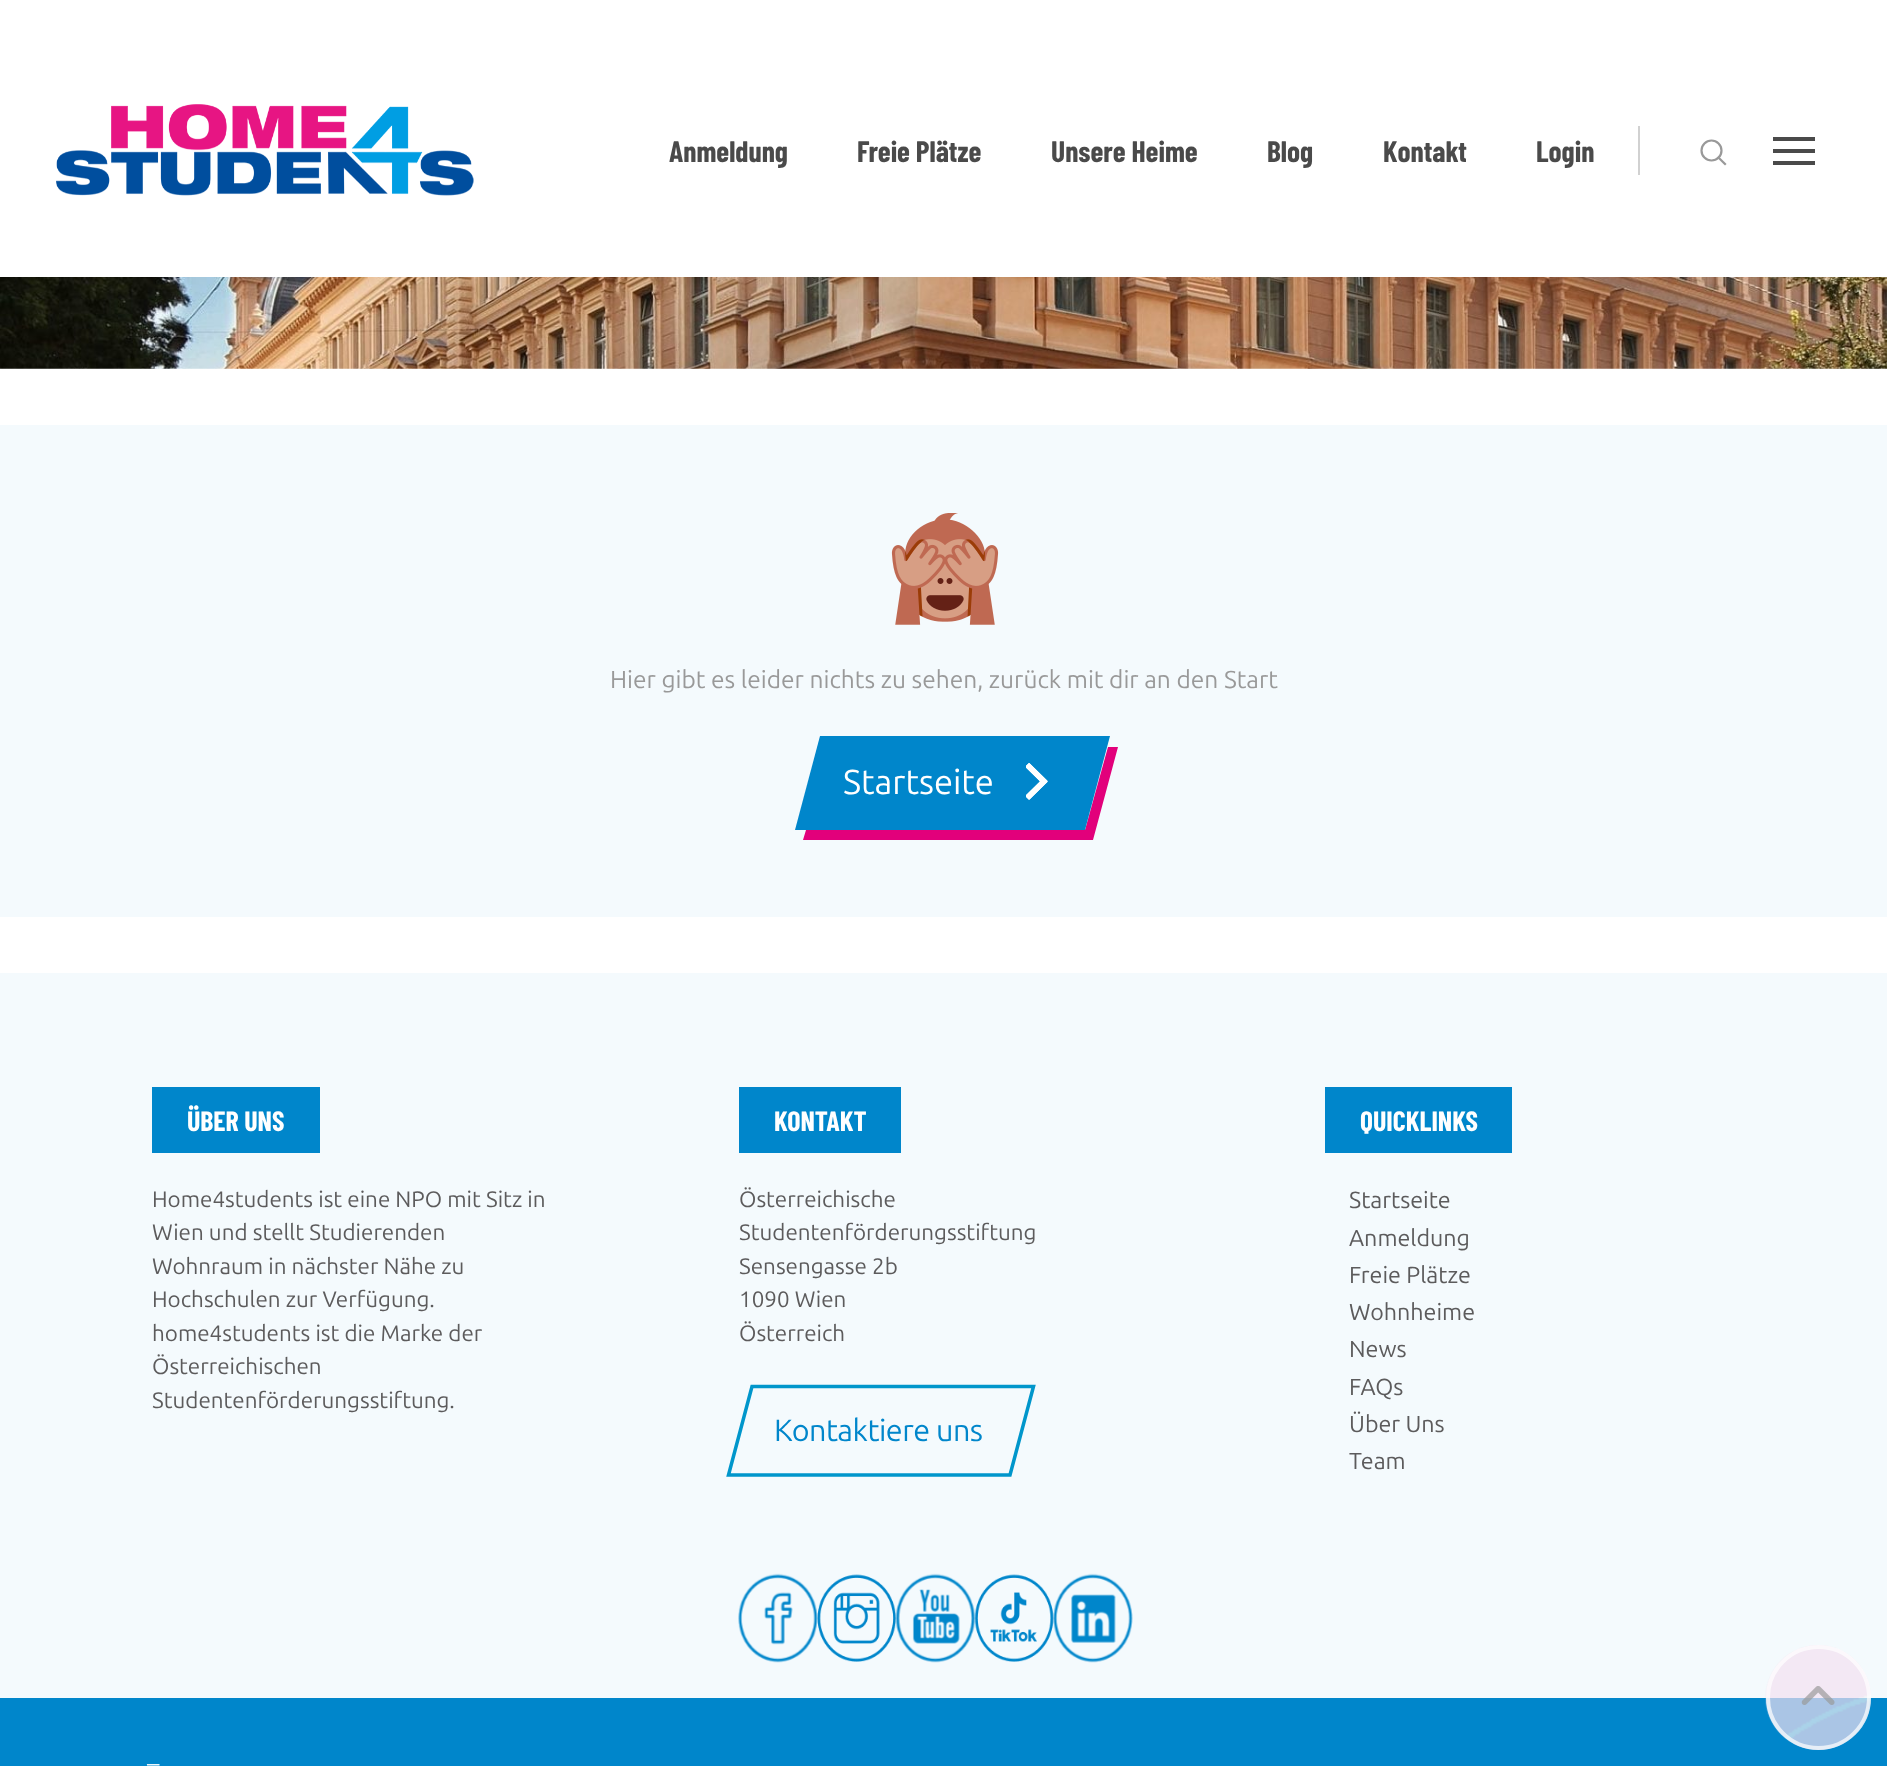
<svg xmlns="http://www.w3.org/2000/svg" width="1887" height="1766">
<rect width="100%" height="100%" fill="#fff"/>
<image x="56" y="104" width="418" height="92" href="media/1.png"/>
<rect x="1638" y="126" width="2" height="49" fill="#d1d1d1"/>
<text x="669" y="162" style="font-family:Barlow Condensed;font-size:29.5px;font-weight:bold;fill:#4a4a4a">Anmeldung</text>
<text x="857" y="162" style="font-family:Barlow Condensed;font-size:29.5px;font-weight:bold;fill:#4a4a4a">Freie Plätze</text>
<text x="1051" y="162" style="font-family:Barlow Condensed;font-size:29.5px;font-weight:bold;fill:#4a4a4a">Unsere Heime</text>
<text x="1267" y="162" style="font-family:Barlow Condensed;font-size:29.5px;font-weight:bold;fill:#4a4a4a">Blog</text>
<text x="1383" y="162" style="font-family:Barlow Condensed;font-size:29.5px;font-weight:bold;fill:#4a4a4a">Kontakt</text>
<text x="1536" y="162" style="font-family:Barlow Condensed;font-size:29.5px;font-weight:bold;fill:#4a4a4a">Login</text>
<circle cx="1711.5" cy="150.5" r="10" fill="none" stroke="#999" stroke-width="2.2"/>
<path d="M1725 164l-6.5-6.5" fill="none" stroke="#999" stroke-width="2.2" stroke-linecap="square"/>
<rect x="1773" y="137" width="42" height="4" fill="#4a4a4a"/>
<rect x="1773" y="149" width="42" height="4" fill="#4a4a4a"/>
<rect x="1773" y="161" width="42" height="4" fill="#4a4a4a"/>
<image x="0" y="277" width="1887" height="92" href="media/2.png"/>
<rect y="425" width="1887" height="492" fill="#f4fafd"/>
<image x="891" y="513" width="108" height="112" href="media/3.png"/>
<text x="610" y="688" style="font-family:Ubuntu;font-size:24.5px;fill:#999">Hier gibt es leider nichts zu sehen, zurück mit dir an den Start</text>
<path d="M806 830l-3 10h290l25-93h-10l-23 83z" fill="#e2007b"/>
<path d="M820 736h290l-25 94h-290z" fill="#0086cb"/>
<text x="843" y="794" style="font-family:Ubuntu;font-size:34.5px;fill:#fff">Startseite</text>
<image x="1026" y="763" width="22" height="37" href="media/4.png"/>
<rect y="973" width="1887" height="725" fill="#f4fafd"/>
<rect x="152" y="1087" width="168" height="66" fill="#0086cb"/>
<text x="187" y="1131" style="font-family:Barlow Condensed;font-size:28px;font-weight:bold;fill:#fff">ÜBER UNS</text>
<text x="152" y="1207" style="font-family:Ubuntu;font-size:22.4px;fill:#5c5b5c">Home4students ist eine NPO mit Sitz in</text>
<text x="152" y="1240" style="font-family:Ubuntu;font-size:22.4px;fill:#5c5b5c">Wien und stellt Studierenden</text>
<text x="152" y="1274" style="font-family:Ubuntu;font-size:22.4px;fill:#5c5b5c">Wohnraum in nächster Nähe zu</text>
<text x="152" y="1307" style="font-family:Ubuntu;font-size:22.4px;fill:#5c5b5c">Hochschulen zur Verfügung.</text>
<text x="152" y="1341" style="font-family:Ubuntu;font-size:22.4px;fill:#5c5b5c">home4students ist die Marke der</text>
<text x="152" y="1374" style="font-family:Ubuntu;font-size:22.4px;fill:#5c5b5c">Österreichischen</text>
<text x="152" y="1408" style="font-family:Ubuntu;font-size:22.4px;fill:#5c5b5c">Studentenförderungsstiftung.</text>
<rect x="739" y="1087" width="162" height="66" fill="#0086cb"/>
<text x="774" y="1131" style="font-family:Barlow Condensed;font-size:28px;font-weight:bold;fill:#fff">KONTAKT</text>
<text x="739" y="1207" style="font-family:Ubuntu;font-size:22.4px;fill:#5c5b5c">Österreichische</text>
<text x="739" y="1240" style="font-family:Ubuntu;font-size:22.4px;fill:#5c5b5c">Studentenförderungsstiftung</text>
<text x="739" y="1274" style="font-family:Ubuntu;font-size:22.4px;fill:#5c5b5c">Sensengasse 2b</text>
<text x="739" y="1307" style="font-family:Ubuntu;font-size:22.4px;fill:#5c5b5c">1090 Wien</text>
<text x="739" y="1341" style="font-family:Ubuntu;font-size:22.4px;fill:#5c5b5c">Österreich</text>
<path d="M752 1386.5h281.5l-23.5 88.5h-281.5z" fill="none" stroke="#0096cb" stroke-width="3.5"/>
<text x="774" y="1441" style="font-family:Ubuntu;font-size:30.5px;letter-spacing:-0.5px;fill:#0086cb">Kontaktiere uns</text>
<image x="738" y="1573" width="80" height="90" href="media/5.png"/>
<image x="817" y="1574" width="79" height="88" href="media/6.png"/>
<image x="895" y="1573" width="81" height="90" href="media/7.png"/>
<image x="974" y="1574" width="80" height="88" href="media/8.png"/>
<image x="1053" y="1573" width="80" height="90" href="media/9.png"/>
<rect x="1325" y="1087" width="187" height="66" fill="#0086cb"/>
<text x="1360" y="1131" style="font-family:Barlow Condensed;font-size:28px;font-weight:bold;fill:#fff">QUICKLINKS</text>
<text x="1349" y="1208" style="font-family:Ubuntu;font-size:23.25px;fill:#5c5b5c">Startseite</text>
<text x="1349" y="1246" style="font-family:Ubuntu;font-size:23.25px;fill:#5c5b5c">Anmeldung</text>
<text x="1349" y="1283" style="font-family:Ubuntu;font-size:23.25px;fill:#5c5b5c">Freie Plätze</text>
<text x="1349" y="1320" style="font-family:Ubuntu;font-size:23.25px;fill:#5c5b5c">Wohnheime</text>
<text x="1349" y="1357" style="font-family:Ubuntu;font-size:23.25px;fill:#5c5b5c">News</text>
<text x="1349" y="1395" style="font-family:Ubuntu;font-size:23.25px;fill:#5c5b5c">FAQs</text>
<text x="1349" y="1432" style="font-family:Ubuntu;font-size:23.25px;fill:#5c5b5c">Über Uns</text>
<text x="1349" y="1469" style="font-family:Ubuntu;font-size:23.25px;fill:#5c5b5c">Team</text>
<rect y="1698" width="1887" height="68" fill="#0086cb"/>
<text x="147" y="1772" style="font-family:Ubuntu;font-size:25px;font-weight:300;fill:#fff">–</text>
<image x="1765" y="1645" width="106" height="105" href="media/10.png"/>
<circle cx="1818.5" cy="1697.5" r="50.5" fill="none" stroke="#ffffffb3" stroke-width="4"/>
<image x="1801" y="1686" width="34" height="19" href="media/11.png"/>
</svg>
